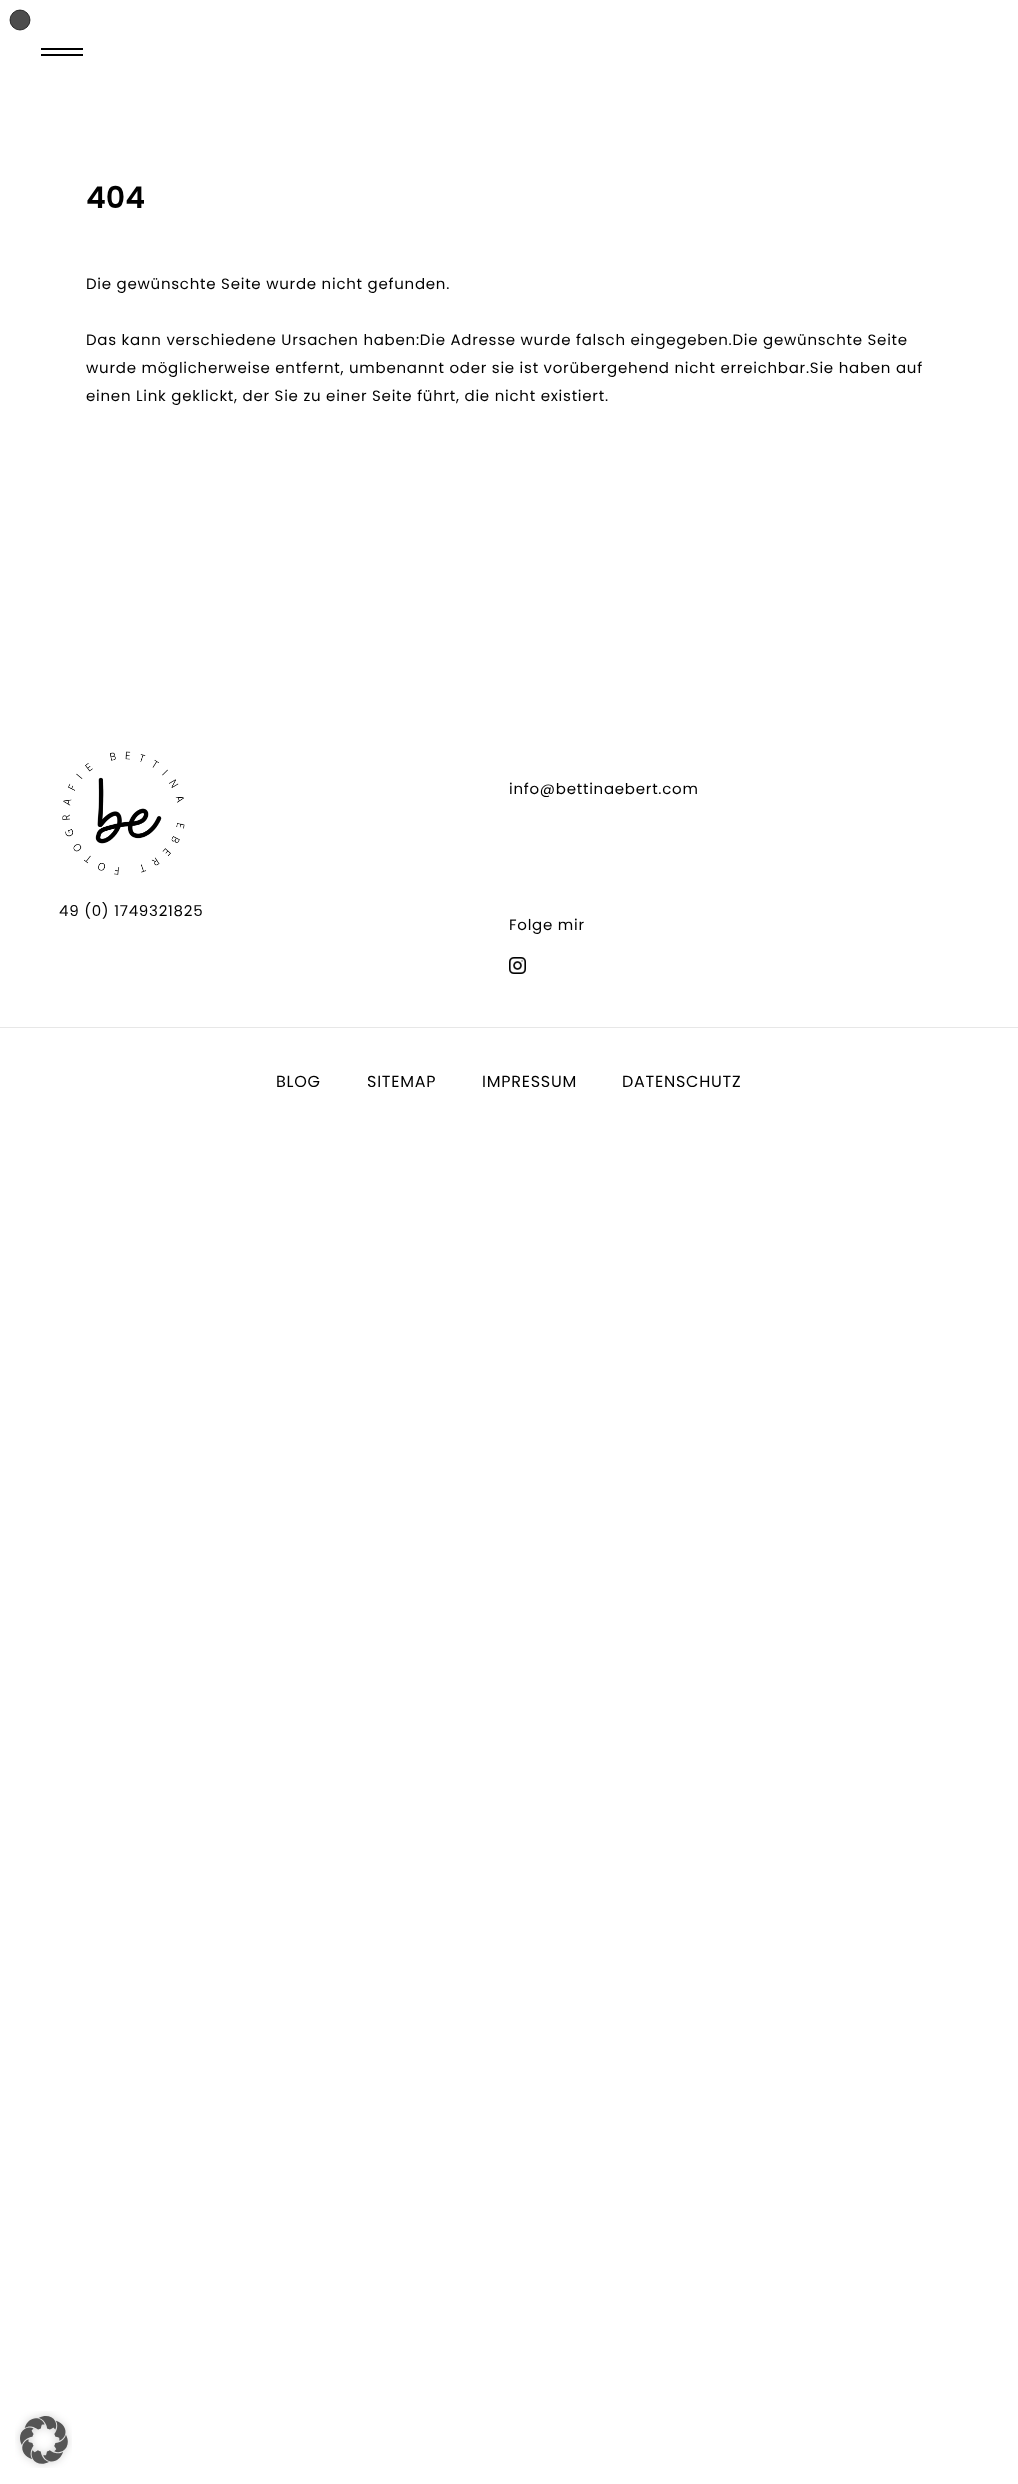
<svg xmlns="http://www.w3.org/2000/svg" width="1018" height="2484">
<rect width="100%" height="100%" fill="#fff"/>
<rect x="41" y="48" width="42" height="2" fill="#000"/>
<rect x="41" y="54" width="42" height="2" fill="#000"/>
<text x="86" y="208" style="font-family:Poppins;font-size:30px;font-weight:600;fill:#000">404</text>
<text x="86" y="289" style="font-family:Poppins;font-size:15px;letter-spacing:0.75px;fill:#000">Die gewünschte Seite wurde nicht gefunden.</text>
<text x="86" y="345" style="font-family:Poppins;font-size:15px;letter-spacing:0.75px;fill:#000">Das kann verschiedene Ursachen haben:Die Adresse wurde falsch eingegeben.Die gewünschte Seite</text>
<text x="86" y="373" style="font-family:Poppins;font-size:15px;letter-spacing:0.75px;fill:#000">wurde möglicherweise entfernt, umbenannt oder sie ist vorübergehend nicht erreichbar.Sie haben auf</text>
<text x="86" y="401" style="font-family:Poppins;font-size:15px;letter-spacing:0.75px;fill:#000">einen Link geklickt, der Sie zu einer Seite führt, die nicht existiert.</text>
<circle cx="20" cy="20" r="10" fill="#4d4d4d" stroke="#000000b3"/>
<image x="62" y="751" width="123" height="124" href="media/1.png"/>
<text x="509" y="794" style="font-family:Poppins;font-size:15px;letter-spacing:0.75px;fill:#000">info@bettinaebert.com</text>
<text x="59" y="916" style="font-family:Poppins;font-size:15px;letter-spacing:0.75px;fill:#000">49 (0) 1749321825</text>
<text x="509" y="930" style="font-family:Poppins;font-size:15px;letter-spacing:0.75px;fill:#000">Folge mir</text>
<image x="509" y="957" width="17" height="17" href="media/2.png"/>
<rect y="1027" width="1018" height="1" fill="#e7e7e7"/>
<text x="276" y="1087" style="font-family:Poppins;font-size:16px;letter-spacing:0.75px;fill:#000">BLOG</text>
<text x="367" y="1087" style="font-family:Poppins;font-size:16px;letter-spacing:0.75px;fill:#000">SITEMAP</text>
<text x="482" y="1087" style="font-family:Poppins;font-size:16px;letter-spacing:0.75px;fill:#000">IMPRESSUM</text>
<text x="622" y="1087" style="font-family:Poppins;font-size:16px;letter-spacing:0.75px;fill:#000">DATENSCHUTZ</text>
<image x="15" y="2411" width="57" height="57" href="media/3.png"/>
</svg>
